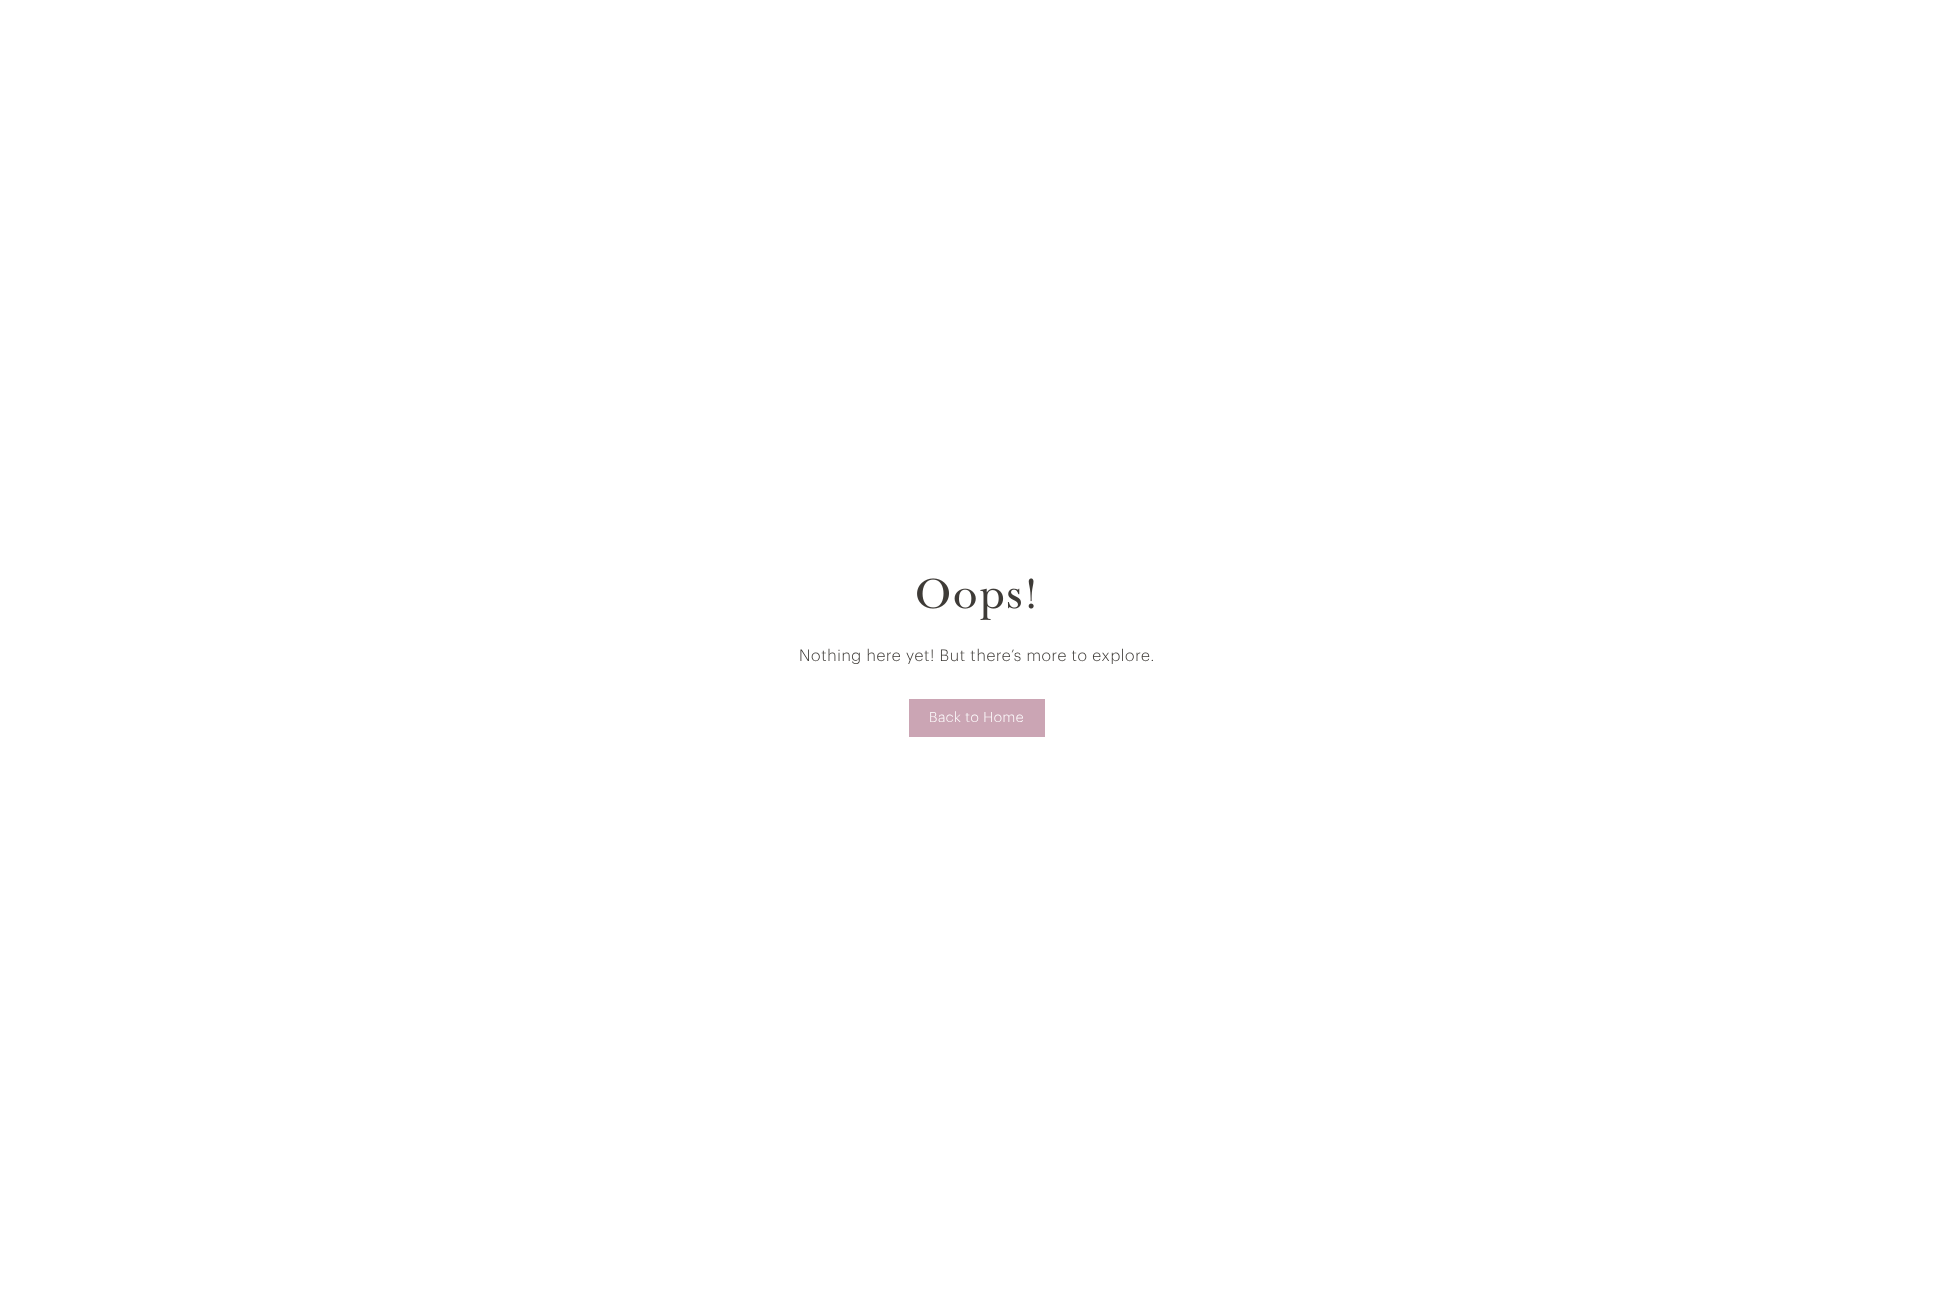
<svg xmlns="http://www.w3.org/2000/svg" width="1954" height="1307">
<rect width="100%" height="100%" fill="#fff"/>
<image x="917" y="578" width="117" height="42" href="media/1.png"/>
<text x="799" y="661" style="font-family:Graphik;font-size:16px;font-weight:300;letter-spacing:0.65px;fill:#3e3b37">Nothing here yet! But there’s more to explore.</text>
<rect x="909" y="699" width="136" height="38" fill="#cba5b4"/>
<text x="929" y="722" style="font-family:Graphik;font-size:14px;font-weight:300;letter-spacing:0.5px;fill:#fff">Back to Home</text>
</svg>
